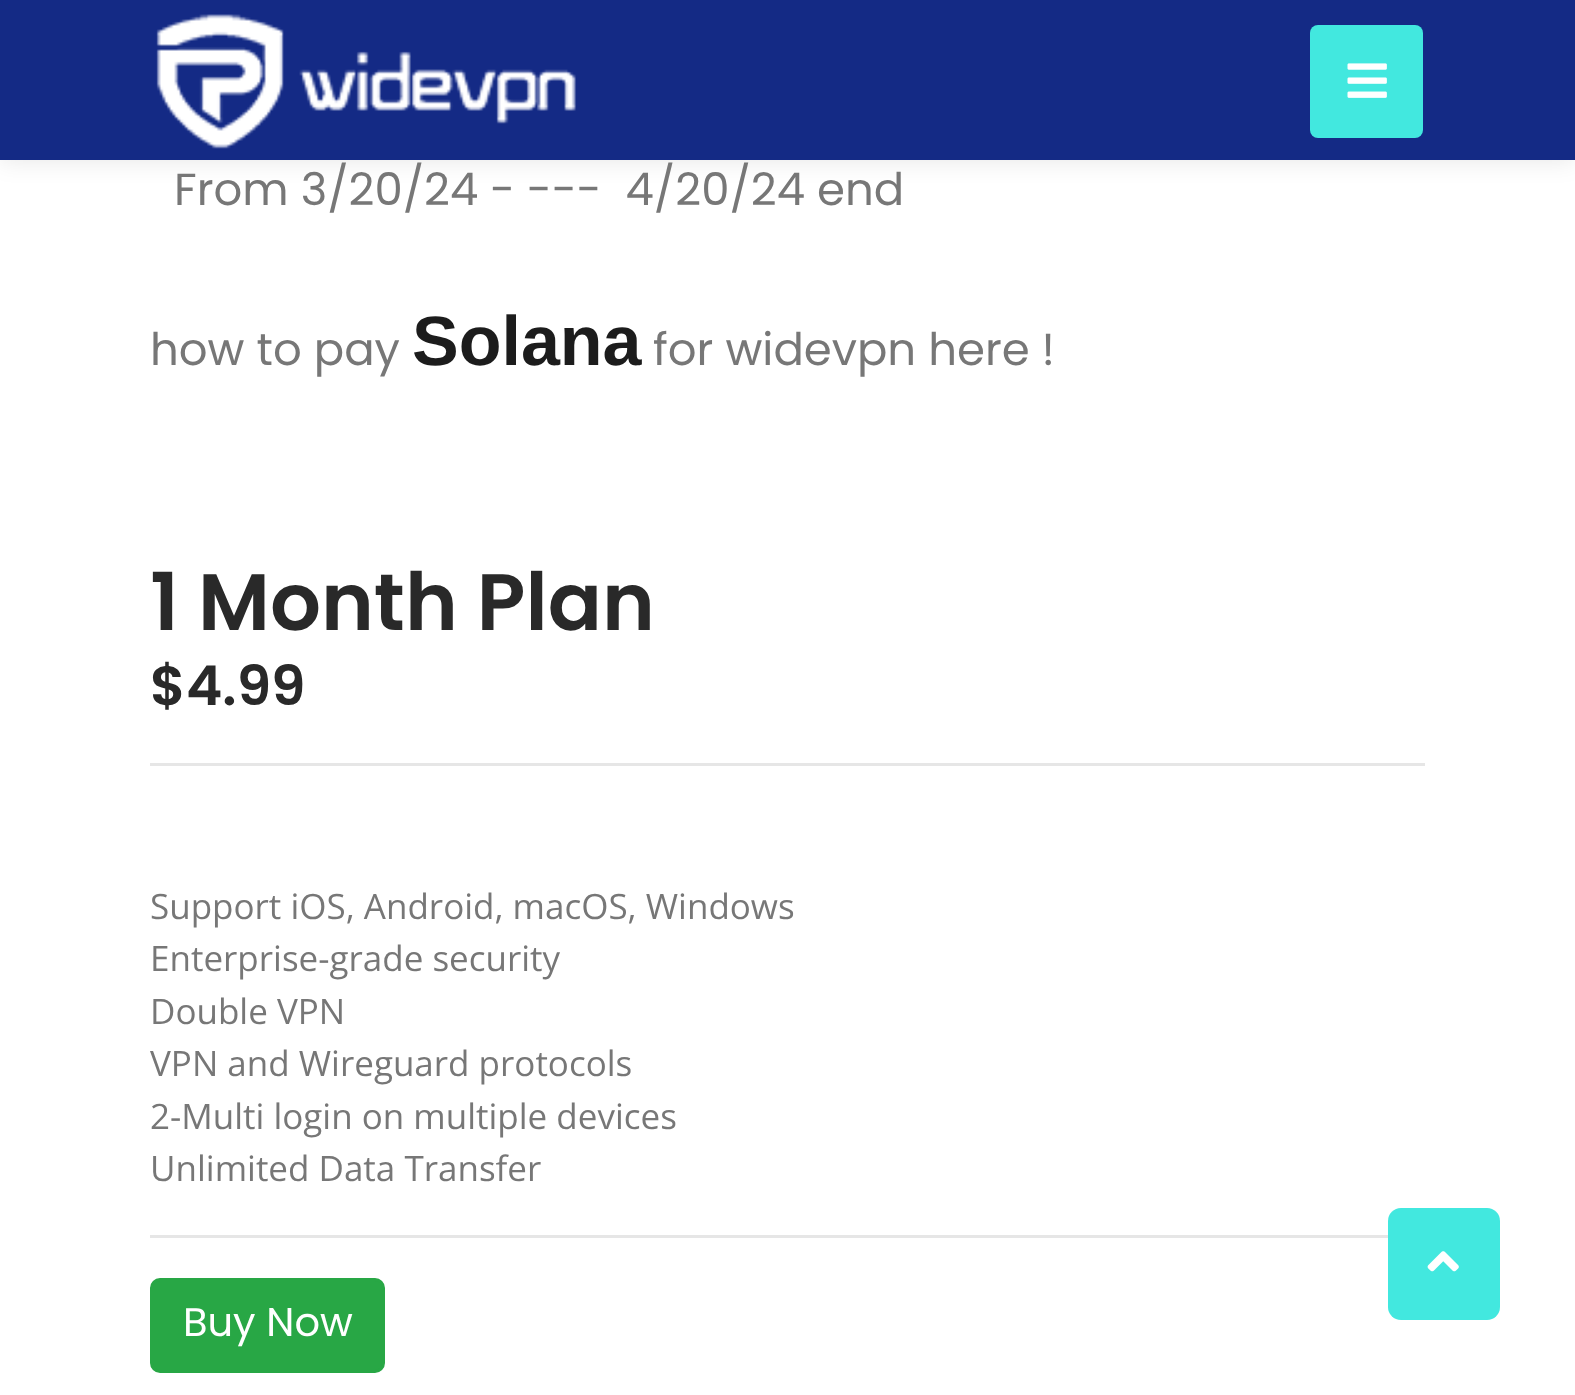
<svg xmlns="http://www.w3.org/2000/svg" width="1575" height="1395">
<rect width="100%" height="100%" fill="#fff"/>
<rect width="1575" height="160" fill="#0000001a" filter="blur(12.5px)"/>
<rect width="1575" height="160" fill="#142a85"/>
<image x="156" y="14" width="420" height="135" href="media/1.png"/>
<rect x="1310" y="25" width="113" height="113" rx="8" fill="#42e8df"/>
<image x="1347" y="63" width="40" height="35" href="media/2.png"/>
<text x="174" y="205" style="font-family:Poppins;font-size:45px;fill:#777" xml:space="preserve">From 3/20/24 - ---  4/20/24 end</text>
<text x="150" y="365" style="font-family:Poppins;font-size:45px;fill:#777">how to pay</text>
<text x="412" y="365" style="font-family:Liberation Sans;font-size:70px;font-weight:bold;fill:#1c1c1c">Solana</text>
<text x="653" y="365" style="font-family:Poppins;font-size:45px;fill:#777">for widevpn here !</text>
<text x="150" y="630" style="font-family:Poppins;font-size:80px;font-weight:600;fill:#292929">1 Month Plan</text>
<text x="150" y="705" style="font-family:Poppins;font-size:55px;font-weight:600;fill:#292929">$4.99</text>
<rect x="150" y="763" width="1275" height="3" fill="#e6e6e6"/>
<text x="150" y="919" style="font-family:Open Sans;font-size:35px;fill:#777">Support iOS, Android, macOS, Windows</text>
<text x="150" y="971" style="font-family:Open Sans;font-size:35px;fill:#777">Enterprise-grade security</text>
<text x="150" y="1024" style="font-family:Open Sans;font-size:35px;fill:#777">Double VPN</text>
<text x="150" y="1076" style="font-family:Open Sans;font-size:35px;fill:#777">VPN and Wireguard protocols</text>
<text x="150" y="1129" style="font-family:Open Sans;font-size:35px;fill:#777">2-Multi login on multiple devices</text>
<text x="150" y="1181" style="font-family:Open Sans;font-size:35px;fill:#777">Unlimited Data Transfer</text>
<rect x="150" y="1235" width="1238" height="3" fill="#e6e6e6"/>
<rect x="151.5" y="1279.5" width="232" height="92" rx="8.5" fill="#28a745" stroke="#28a745" stroke-width="3"/>
<text x="183" y="1336" style="font-family:Poppins;font-size:40px;fill:#fff">Buy Now</text>
<rect x="1388" y="1208" width="112" height="112" rx="13" fill="#42e8df"/>
<image x="1427" y="1251" width="32" height="21" href="media/3.png"/>
</svg>
